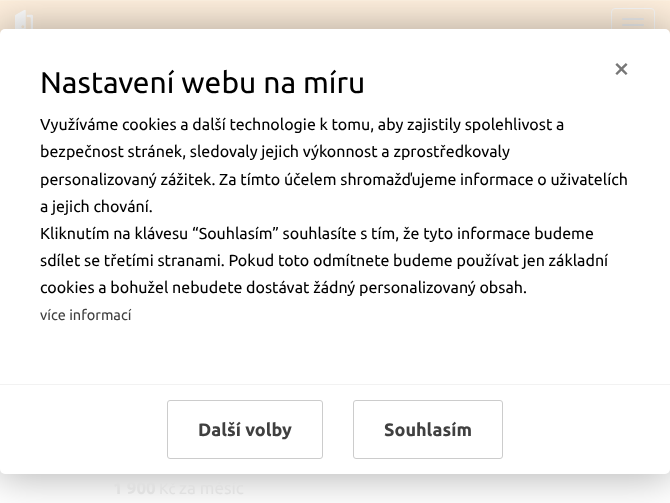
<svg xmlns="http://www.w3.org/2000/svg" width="670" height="503">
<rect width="100%" height="100%" fill="#fff"/>
<rect y="1" width="670" height="33" fill="#fff0de"/>
<rect width="670" height="1" fill="#fff3e3"/>
<image x="15" y="10" width="18" height="19" href="media/1.png"/>
<rect x="611.5" y="8.5" width="43" height="33" rx="3.5" fill="none" stroke="#fafafa"/>
<rect x="622" y="18" width="22" height="2" rx="1" fill="#ededed"/>
<rect x="622" y="24" width="22" height="2" rx="1" fill="#ededed"/>
<rect x="-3" y="26" width="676" height="451" rx="8" fill="#0000004d" filter="blur(20px)"/>
<rect y="29" width="670" height="445" rx="5" fill="#fff"/>
<text x="40" y="93" style="font-family:Ubuntu;font-size:30px;fill:#000">Nastavení webu na míru</text>
<text x="613" y="78" style="font-family:Ubuntu;font-size:30px;fill:#777">×</text>
<text x="40" y="130" style="font-family:Ubuntu;font-size:16px;fill:#000">Využíváme cookies a další technologie k tomu, aby zajistily spolehlivost a</text>
<text x="40" y="157" style="font-family:Ubuntu;font-size:16px;fill:#000">bezpečnost stránek, sledovaly jejich výkonnost a zprostředkovaly</text>
<text x="40" y="185" style="font-family:Ubuntu;font-size:16px;fill:#000">personalizovaný zážitek. Za tímto účelem shromažďujeme informace o uživatelích</text>
<text x="40" y="212" style="font-family:Ubuntu;font-size:16px;fill:#000">a jejich chování.</text>
<text x="40" y="239" style="font-family:Ubuntu;font-size:16px;fill:#000">Kliknutím na klávesu “Souhlasím” souhlasíte s tím, že tyto informace budeme</text>
<text x="40" y="266" style="font-family:Ubuntu;font-size:16px;fill:#000">sdílet se třetími stranami. Pokud toto odmítnete budeme používat jen základní</text>
<text x="40" y="293" style="font-family:Ubuntu;font-size:16px;fill:#000">cookies a bohužel nebudete dostávat žádný personalizovaný obsah.</text>
<text x="40" y="320" style="font-family:Ubuntu;font-size:14.5px;fill:#404040">více informací</text>
<rect y="384" width="670" height="1" fill="#f2f2f2"/>
<rect x="167.5" y="400.5" width="155" height="58" rx="2.5" fill="none" stroke="#ccc"/>
<text x="198" y="436" style="font-family:Ubuntu;font-size:18px;font-weight:bold;fill:#404040">Další volby</text>
<rect x="353.5" y="400.5" width="149" height="58" rx="2.5" fill="none" stroke="#ccc"/>
<text x="384" y="436" style="font-family:Ubuntu;font-size:18px;font-weight:bold;fill:#404040">Souhlasím</text>
<text x="113" y="494" style="font-family:Ubuntu;font-size:17px;font-weight:bold;fill:#e0e0e0">1 900</text>
<text x="159" y="494" style="font-family:Ubuntu;font-size:15px;fill:#e0e0e0">Kč</text>
<text x="179" y="494" style="font-family:Ubuntu;font-size:17px;fill:#e0e0e0">za měsíc</text>
</svg>
